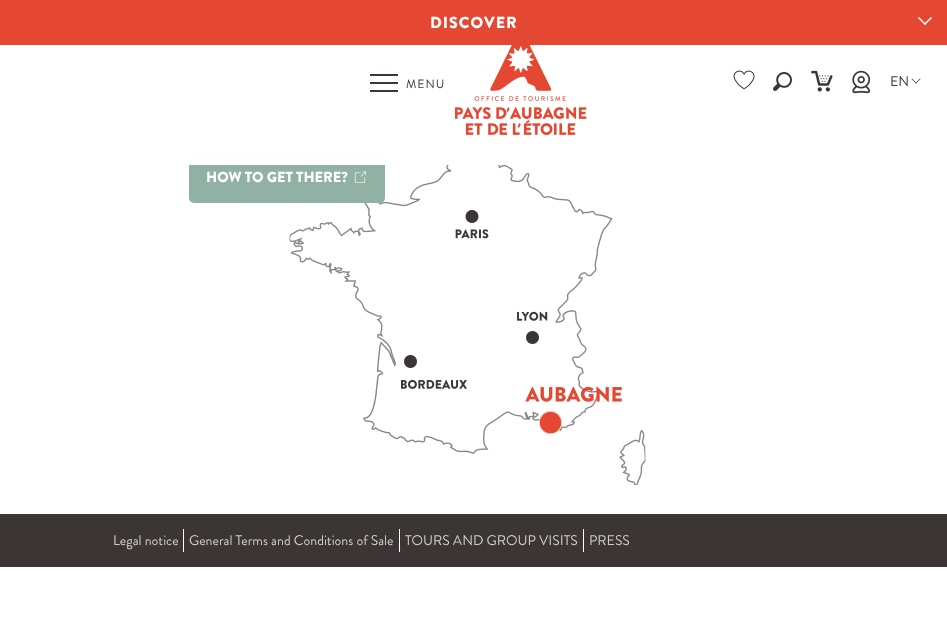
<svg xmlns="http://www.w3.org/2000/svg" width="947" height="627">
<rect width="100%" height="100%" fill="#fff"/>
<rect width="947" height="45" fill="#e44833"/>
<text x="430" y="28" style="font-family:Brandon Grotesque;font-size:16px;font-weight:900;letter-spacing:1px;fill:#fefefe">DISCOVER</text>
<path d="M919 17l7 7l-1 1l-7-7z" fill="#fefefe"/>
<path d="M924 24l7-7l1 1l-7 7z" fill="#fefefe"/>
<image x="289" y="165" width="357" height="320" href="media/7.png"/>
<rect x="189" y="154" width="196" height="49" rx="5" fill="#92b1a5"/>
<rect x="189" y="154" width="196" height="11" fill="#fefefe"/>
<rect x="370" y="74" width="28" height="2" fill="#3c3535"/>
<rect x="370" y="82" width="28" height="2" fill="#3c3535"/>
<rect x="370" y="90" width="28" height="2" fill="#3c3535"/>
<text x="406" y="88" style="font-family:Brandon Grotesque;font-size:12px;letter-spacing:1px;fill:#3c3535">MENU</text>
<image x="455" y="45" width="132" height="90" href="media/1.png"/>
<image x="733" y="70" width="22" height="20" href="media/2.png"/>
<image x="773" y="72" width="19" height="19" href="media/3.png"/>
<image x="811" y="70" width="22" height="22" href="media/4.png"/>
<image x="852" y="70" width="19" height="24" href="media/5.png"/>
<text x="890" y="86" style="font-family:Brandon Grotesque;font-size:14px;fill:#3c3535">EN</text>
<path d="M912 78.5l4.5 4.5l-.5 .5l-4.5-4.5z" fill="#3c3535"/>
<path d="M915.5 83l4.5-4.5l.5 .5l-4.5 4.5z" fill="#3c3535"/>
<text x="206" y="182" style="font-family:Brandon Grotesque;font-size:14.5px;font-weight:900;fill:#fefefe">HOW TO GET THERE?</text>
<image x="354" y="171" width="13" height="12" href="media/6.png"/>
<rect y="514" width="947" height="53" fill="#3c3535"/>
<rect x="183" y="529" width="1" height="23" fill="#fefefe"/>
<text x="113" y="545" style="font-family:Brandon Grotesque;font-size:14px;fill:#cecccc">Legal notice</text>
<rect x="399" y="529" width="1" height="23" fill="#fefefe"/>
<text x="189" y="545" style="font-family:Brandon Grotesque;font-size:14px;fill:#cecccc">General Terms and Conditions of Sale</text>
<rect x="583" y="529" width="1" height="23" fill="#fefefe"/>
<text x="405" y="545" style="font-family:Brandon Grotesque;font-size:14px;fill:#cecccc">TOURS AND GROUP VISITS</text>
<text x="589" y="545" style="font-family:Brandon Grotesque;font-size:14px;fill:#cecccc">PRESS</text>
</svg>
